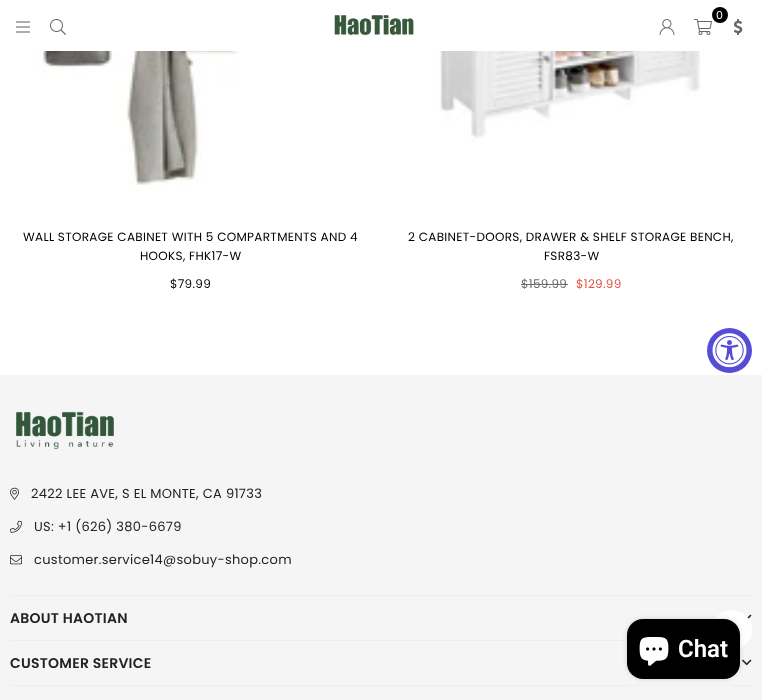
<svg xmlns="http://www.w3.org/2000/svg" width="762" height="700">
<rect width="100%" height="100%" fill="#fff"/>
<image x="16" y="21" width="14" height="12" href="media/1.png"/>
<image x="50" y="19" width="16" height="16" href="media/2.png"/>
<image x="334" y="15" width="80" height="21" href="media/3.png"/>
<circle cx="720" cy="15" r="8" fill="#000"/>
<text x="716" y="19" style="font-family:Poppins;font-size:11px;letter-spacing:0.3px;fill:#fff">0</text>
<image x="694" y="19" width="18" height="16" href="media/4.png"/>
<image x="659" y="19" width="16" height="16" href="media/5.png"/>
<image x="733" y="19" width="10" height="16" href="media/6.png"/>
<image x="38" y="51" width="317" height="134" href="media/7.png"/>
<text x="23" y="241" style="font-family:Poppins;font-size:12px;letter-spacing:0.3px;fill:#000">WALL STORAGE CABINET WITH 5 COMPARTMENTS AND 4</text>
<text x="140" y="260" style="font-family:Poppins;font-size:12px;letter-spacing:0.3px;fill:#000">HOOKS, FHK17-W</text>
<text x="170" y="288" style="font-family:Poppins;font-size:12px;letter-spacing:0.3px;fill:#090a0a">$79.99</text>
<image x="437" y="51" width="265" height="91" href="media/8.png"/>
<text x="408" y="241" style="font-family:Poppins;font-size:12px;letter-spacing:0.3px;fill:#000">2 CABINET-DOORS, DRAWER &amp; SHELF STORAGE BENCH,</text>
<text x="544" y="260" style="font-family:Poppins;font-size:12px;letter-spacing:0.3px;fill:#000">FSR83-W</text>
<text x="521" y="288" style="font-family:Poppins;font-size:12px;letter-spacing:0.3px;fill:#6b6c6c">$159.99</text>
<rect x="521" y="284" width="47" height="1" fill="#6b6c6c"/>
<text x="576" y="288" style="font-family:Poppins;font-size:12px;letter-spacing:0.3px;fill:#e95144">$129.99</text>
<circle cx="729.5" cy="350.5" r="22.5" fill="#574cd5"/>
<image x="712" y="333" width="35" height="35" href="media/9.png"/>
<rect y="375" width="762" height="325" fill="#f5f5f5"/>
<image x="16" y="411" width="98" height="39" href="media/10.png"/>
<image x="10" y="487" width="9" height="13" href="media/11.png"/>
<text x="31" y="498" style="font-family:Poppins;font-size:13px;letter-spacing:0.3px;fill:#222">2422 LEE AVE, S EL MONTE, CA 91733</text>
<image x="10" y="520" width="12" height="13" href="media/12.png"/>
<text x="34" y="531" style="font-family:Poppins;font-size:13px;letter-spacing:0.3px;fill:#222">US: +1 (626) 380-6679</text>
<image x="10" y="555" width="12" height="10" href="media/13.png"/>
<text x="34" y="564" style="font-family:Poppins;font-size:13px;letter-spacing:0.3px;fill:#222">customer.service14@sobuy-shop.com</text>
<rect x="10" y="595" width="742" height="1" fill="#eee"/>
<text x="10" y="623" style="font-family:Poppins;font-size:14px;font-weight:600;letter-spacing:0.25px;fill:#222">ABOUT HAOTIAN</text>
<image x="747" y="614" width="5" height="5" href="media/14.png"/>
<rect x="10" y="640" width="742" height="1" fill="#eee"/>
<text x="10" y="668" style="font-family:Poppins;font-size:14px;font-weight:600;letter-spacing:0.25px;fill:#222">CUSTOMER SERVICE</text>
<image x="742" y="659" width="10" height="7" href="media/15.png"/>
<rect x="10" y="685" width="742" height="1" fill="#eee"/>
<circle cx="732" cy="630" r="20" fill="#fff"/>
<image x="738" y="629" width="1" height="1" href="media/17.png"/>
<rect x="627" y="619" width="113" height="60" rx="16" fill="#00000026" filter="blur(2.5px)"/>
<rect x="627" y="619" width="113" height="60" rx="16" fill="#000"/>
<image x="639" y="637" width="30" height="29" href="media/16.png"/>
<text x="678" y="657" style="font-family:Roboto;font-size:24px;font-weight:600;fill:#fff">Chat</text>
</svg>
